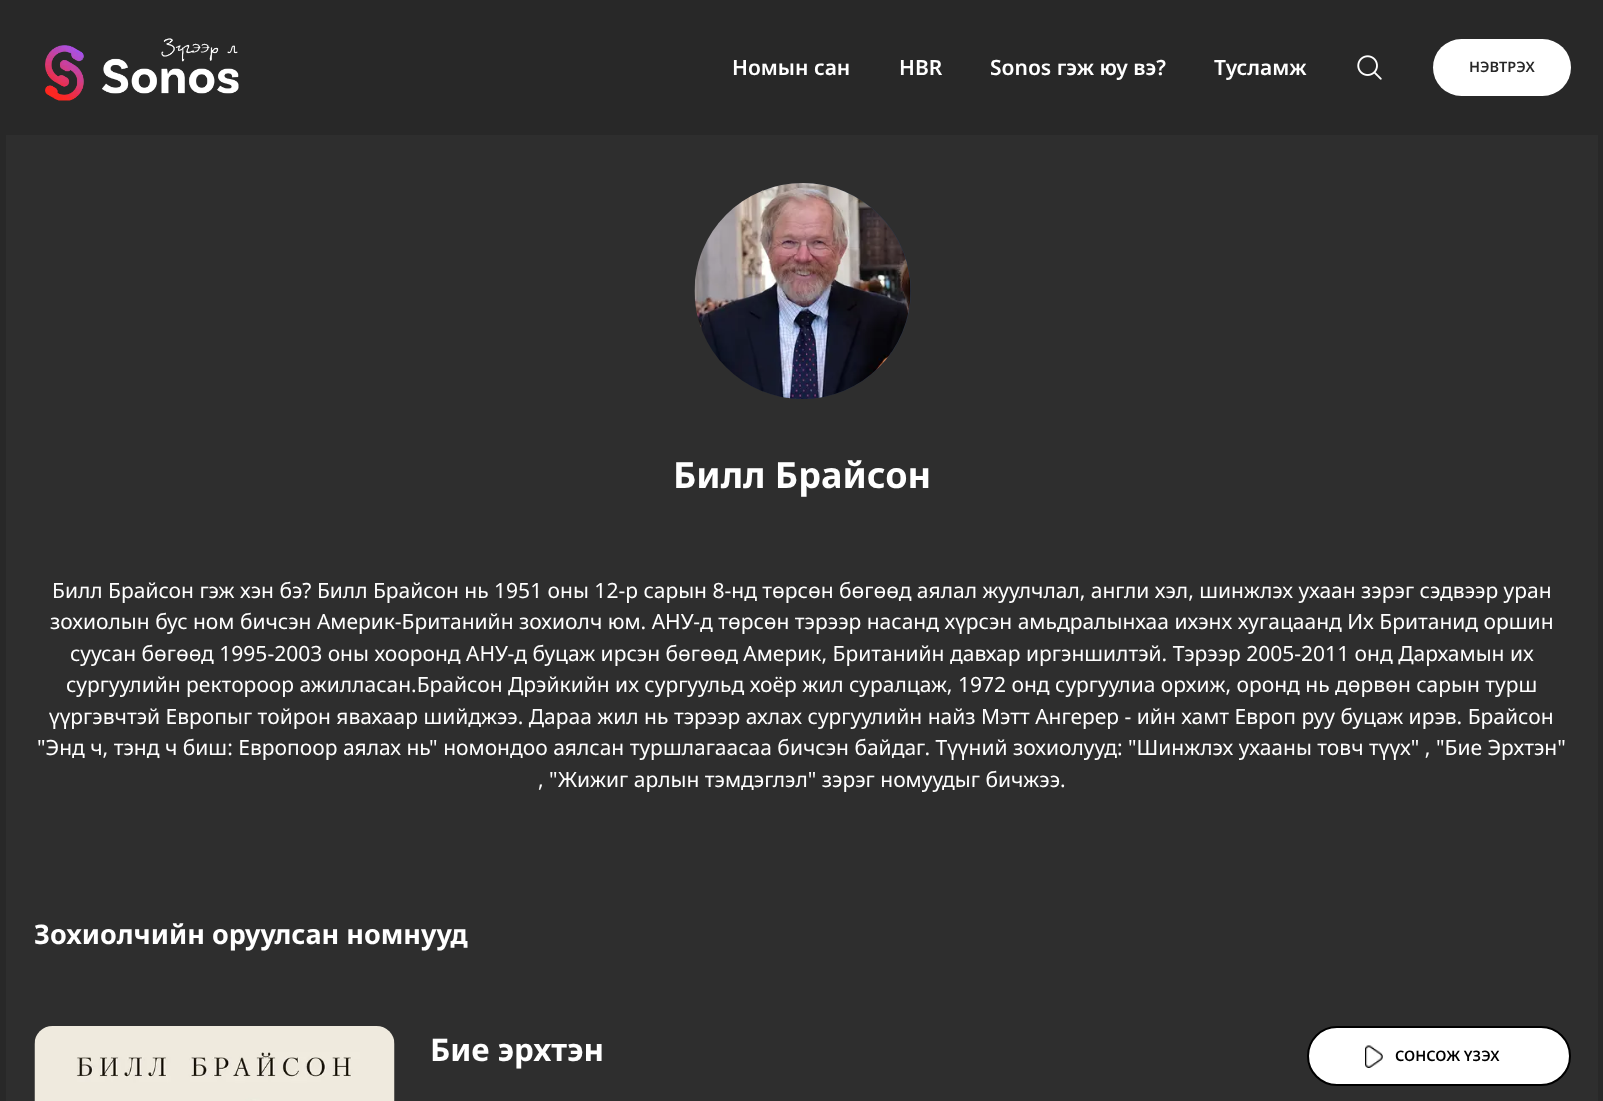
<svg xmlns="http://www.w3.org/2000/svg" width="1603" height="1101">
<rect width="100%" height="100%" fill="#282828"/>
<image x="45" y="38" width="194" height="63" href="media/1.png"/>
<text x="732" y="75" style="font-family:Noto Sans;font-size:21px;font-weight:600;fill:#fff">Номын сан</text>
<text x="899" y="75" style="font-family:Noto Sans;font-size:21px;font-weight:600;fill:#fff">HBR</text>
<text x="990" y="75" style="font-family:Noto Sans;font-size:21px;font-weight:600;fill:#fff">Sonos гэж юу вэ?</text>
<text x="1214" y="75" style="font-family:Noto Sans;font-size:21px;font-weight:600;fill:#fff">Тусламж</text>
<image x="1357" y="55" width="25" height="25" href="media/2.png"/>
<rect x="1433" y="39" width="138" height="57" rx="28.5" fill="#fff"/>
<text x="1469" y="72" style="font-family:Noto Sans;font-size:14.5px;font-weight:600;fill:#282828">НЭВТРЭХ</text>
<rect x="6" y="135" width="1592" height="966" fill="#2e2e2e"/>
<circle cx="803" cy="291" r="108" fill="#2d3748"/>
<image x="694" y="183" width="217" height="216" href="media/3.png"/>
<text x="673" y="488" style="font-family:Noto Sans;font-size:36px;font-weight:bold;fill:#fff">Билл Брайсон</text>
<text x="52" y="598" style="font-family:Noto Sans;font-size:21px;fill:#fff">Билл Брайсон гэж хэн бэ? Билл Брайсон нь 1951 оны 12-р сарын 8-нд төрсөн бөгөөд аялал жуулчлал, англи хэл, шинжлэх ухаан зэрэг сэдвээр уран</text>
<text x="50" y="629" style="font-family:Noto Sans;font-size:21px;fill:#fff">зохиолын бус ном бичсэн Америк-Британийн зохиолч юм. АНУ-д төрсөн тэрээр насанд хүрсэн амьдралынхаа ихэнх хугацаанд Их Британид оршин</text>
<text x="70" y="661" style="font-family:Noto Sans;font-size:21px;fill:#fff">суусан бөгөөд 1995-2003 оны хооронд АНУ-д буцаж ирсэн бөгөөд Америк, Британийн давхар иргэншилтэй. Тэрээр 2005-2011 онд Дархамын их</text>
<text x="66" y="692" style="font-family:Noto Sans;font-size:21px;fill:#fff">сургуулийн ректороор ажилласан.Брайсон Дрэйкийн их сургуульд хоёр жил суралцаж, 1972 онд сургуулиа орхиж, оронд нь дөрвөн сарын турш</text>
<text x="49" y="724" style="font-family:Noto Sans;font-size:21px;fill:#fff">үүргэвчтэй Европыг тойрон явахаар шийджээ. Дараа жил нь тэрээр ахлах сургуулийн найз Мэтт Ангерер - ийн хамт Европ руу буцаж ирэв. Брайсон</text>
<text x="37" y="755" style="font-family:Noto Sans;font-size:21px;fill:#fff">"Энд ч, тэнд ч биш: Европоор аялах нь" номондоо аялсан туршлагаасаа бичсэн байдаг. Түүний зохиолууд: "Шинжлэх ухааны товч түүх" , "Бие Эрхтэн"</text>
<text x="538" y="787" style="font-family:Noto Sans;font-size:21px;fill:#fff">, "Жижиг арлын тэмдэглэл" зэрэг номуудыг бичжээ.</text>
<text x="34" y="944" style="font-family:Noto Sans;font-size:27px;font-weight:bold;fill:#fff">Зохиолчийн оруулсан номнууд</text>
<image x="34" y="1026" width="361" height="75" href="media/4.png"/>
<text x="430" y="1061" style="font-family:Noto Sans;font-size:31.25px;font-weight:bold;fill:#fff">Бие эрхтэн</text>
<rect x="1308" y="1027" width="262" height="58" rx="29" fill="#fff" stroke="#000" stroke-width="2"/>
<image x="1365" y="1045" width="18" height="23" href="media/5.png"/>
<text x="1395" y="1061" style="font-family:Noto Sans;font-size:14.5px;font-weight:600;fill:#000">СОНСОЖ ҮЗЭХ</text>
</svg>
